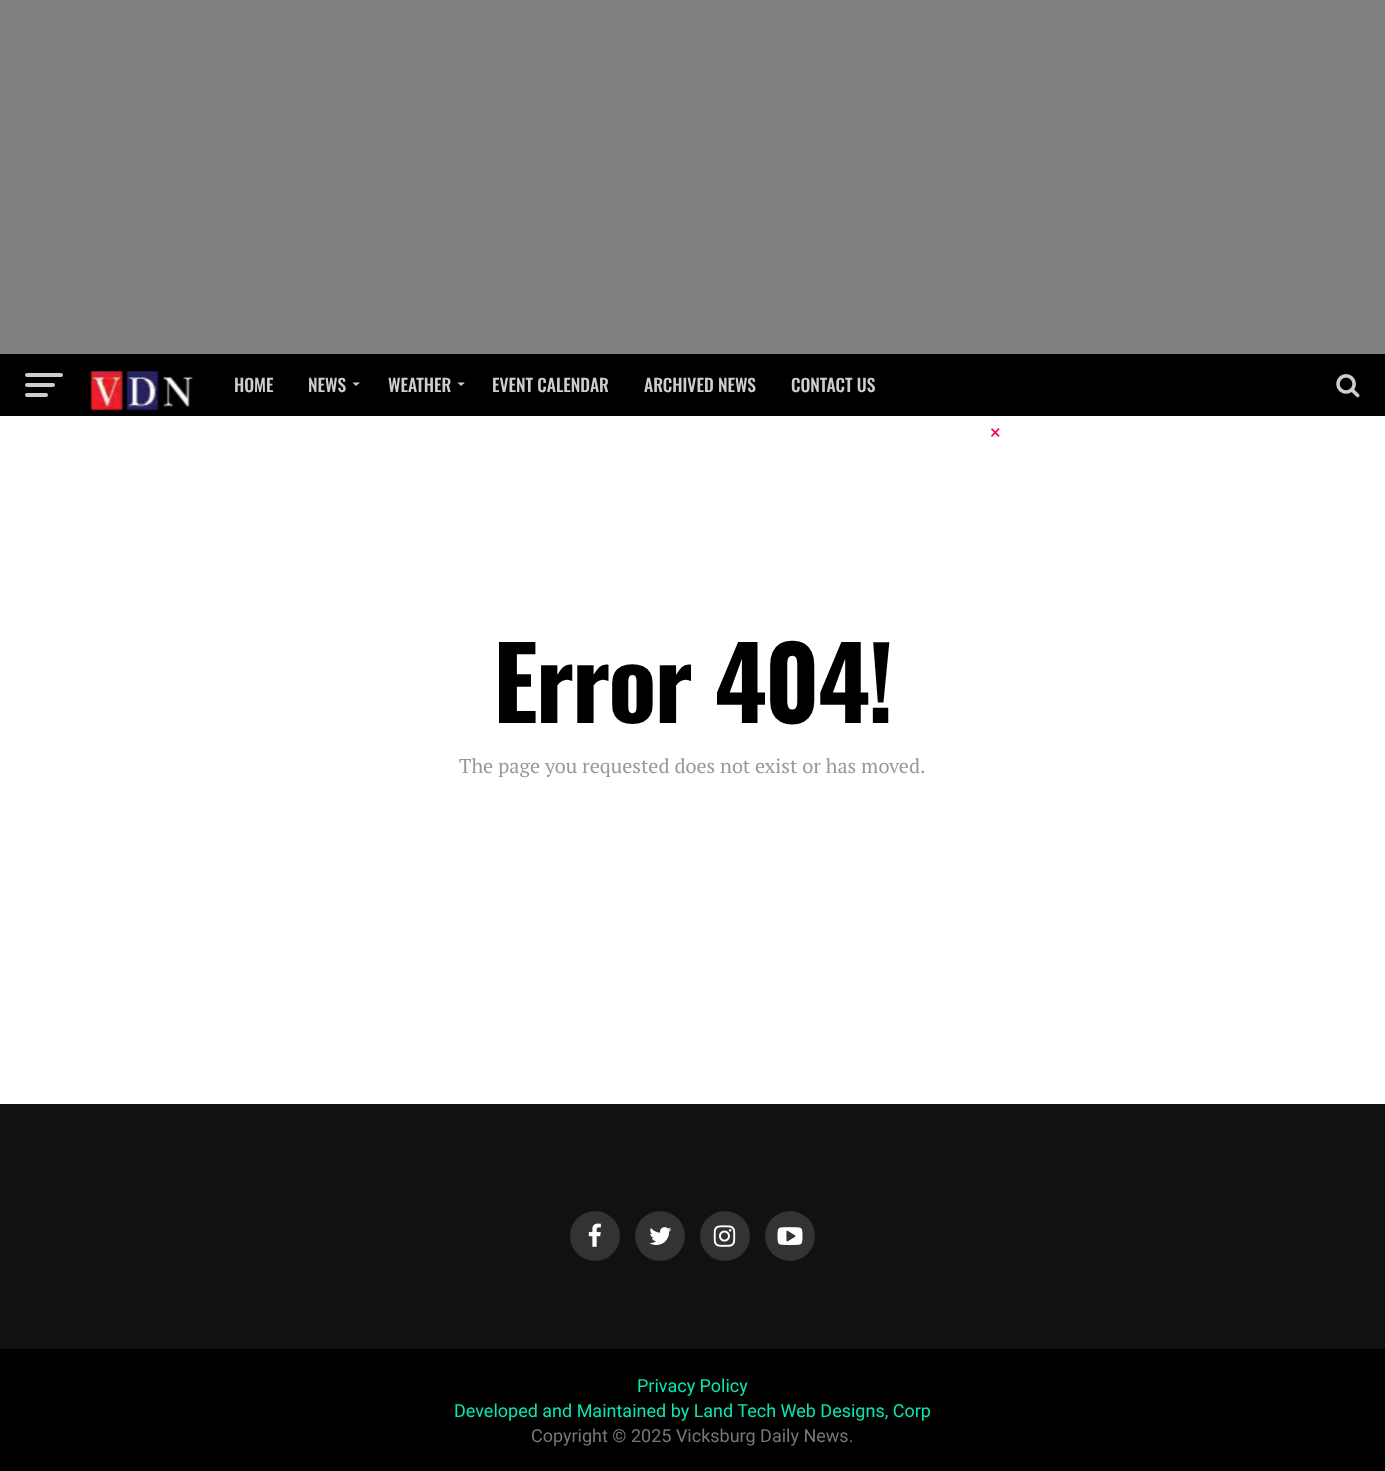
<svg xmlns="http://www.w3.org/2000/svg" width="1385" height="1471">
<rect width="100%" height="100%" fill="#808080"/>
<rect y="354" width="1385" height="62" fill="#000"/>
<rect x="25" y="373" width="38" height="4" rx="2" fill="#cecece"/>
<rect x="25" y="383" width="30" height="4" rx="2" fill="#cecece"/>
<rect x="25" y="393" width="23" height="4" rx="2" fill="#cecece"/>
<image x="90" y="371" width="104" height="40" href="media/1.png"/>
<text x="234" y="392" style="font-family:Oswald;font-size:17.5px;font-weight:500;fill:#cecece">HOME</text>
<text x="308" y="392" style="font-family:Oswald;font-size:17.5px;font-weight:500;fill:#cecece">NEWS</text>
<path d="M352.5 382.5h7.5l-4 3.5z" fill="#cecece"/>
<text x="388" y="392" style="font-family:Oswald;font-size:17.5px;font-weight:500;fill:#cecece">WEATHER</text>
<path d="M457.5 382.5h7.5l-4 3.5z" fill="#cecece"/>
<text x="492" y="392" style="font-family:Oswald;font-size:17.5px;font-weight:500;fill:#cecece">EVENT CALENDAR</text>
<text x="644" y="392" style="font-family:Oswald;font-size:17.5px;font-weight:500;fill:#cecece">ARCHIVED NEWS</text>
<text x="791" y="392" style="font-family:Oswald;font-size:17.5px;font-weight:500;fill:#cecece">CONTACT US</text>
<image x="1336" y="374" width="24" height="24" href="media/2.png"/>
<rect y="416" width="1385" height="688" fill="#fff"/>
<text x="493" y="723" style="font-family:Oswald;font-size:100px;font-weight:bold;letter-spacing:-2px;fill:#000">Error 404!</text>
<text x="459" y="773" style="font-family:PT Serif;font-size:20px;fill:#999">The page you requested does not exist or has moved.</text>
<rect y="1104" width="1385" height="245" fill="#111"/>
<circle cx="595" cy="1236" r="25" fill="#333"/>
<image x="588" y="1223" width="13" height="24" href="media/3.png"/>
<circle cx="660" cy="1236" r="25" fill="#333"/>
<image x="649" y="1227" width="23" height="18" href="media/4.png"/>
<circle cx="725" cy="1236" r="25" fill="#333"/>
<image x="713" y="1225" width="23" height="22" href="media/5.png"/>
<circle cx="790" cy="1236" r="25" fill="#333"/>
<image x="777" y="1227" width="26" height="18" href="media/6.png"/>
<rect y="1349" width="1385" height="122" fill="#000"/>
<text x="637" y="1392" style="font-family:Roboto;font-size:18px;fill:#0be6af">Privacy Policy</text>
<text x="454" y="1417" style="font-family:Roboto;font-size:18px;fill:#0be6af">Developed and Maintained by Land Tech Web Designs, Corp</text>
<text x="531" y="1442" style="font-family:Roboto;font-size:18px;fill:#777">Copyright © 2025 Vicksburg Daily News.</text>
<text x="990" y="439" style="font-family:Roboto;font-size:20px;fill:#ff005b">×</text>
</svg>
